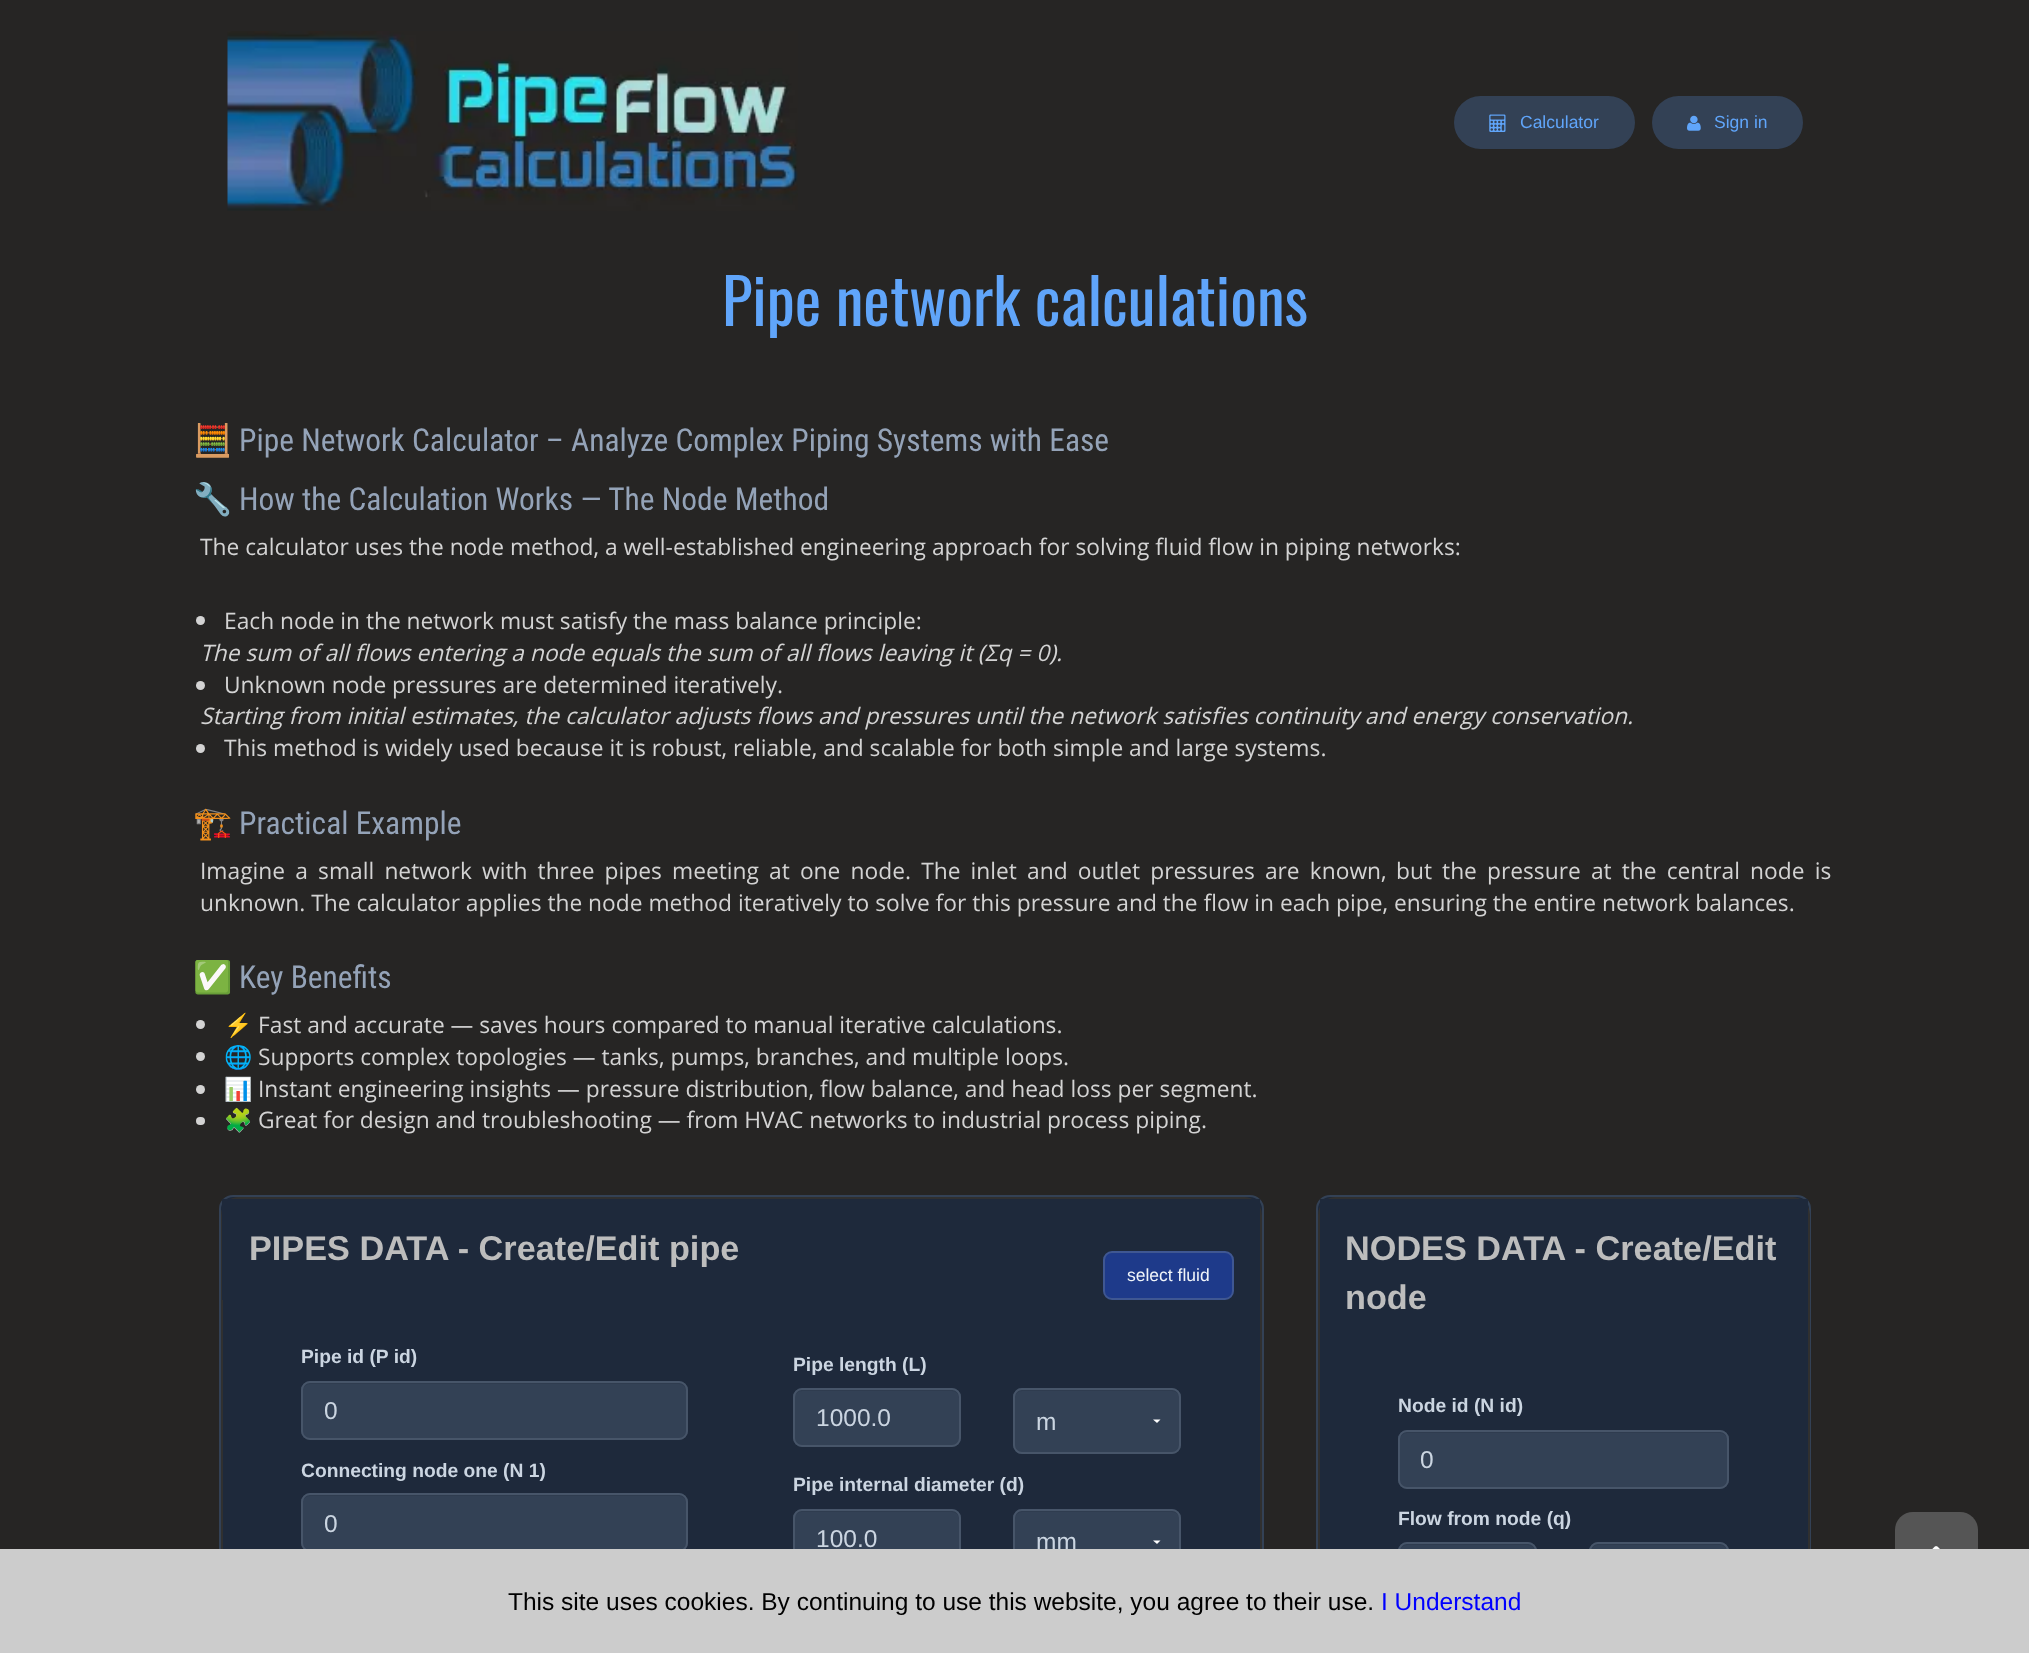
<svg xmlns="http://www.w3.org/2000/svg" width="2029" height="1653">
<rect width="100%" height="100%" fill="#262524"/>
<image x="227" y="31" width="571" height="180" href="media/1.png"/>
<rect x="1454" y="96" width="181" height="53" rx="26.5" fill="#334155"/>
<image x="1489" y="114" width="17" height="18" href="media/2.png"/>
<text x="1520" y="128" style="font-family:Liberation Sans;font-size:17.5px;fill:#60a5fa">Calculator</text>
<rect x="1652" y="96" width="151" height="53" rx="26.5" fill="#334155"/>
<image x="1687" y="115" width="14" height="16" href="media/3.png"/>
<text x="1714" y="128" style="font-family:Liberation Sans;font-size:17.5px;fill:#60a5fa">Sign in</text>
<text x="722" y="326" style="font-family:Oswald;font-size:63px;fill:#60a5fa">Pipe network calculations</text>
<text x="193" y="451" style="font-family:Noto Color Emoji;font-size:31.5px;fill:#94a3b8">🧮</text>
<text x="239" y="451" style="font-family:Roboto Condensed;font-size:31.5px;fill:#94a3b8">Pipe Network Calculator – Analyze Complex Piping Systems with Ease</text>
<text x="193" y="510" style="font-family:Noto Color Emoji;font-size:31.5px;fill:#94a3b8">🔧</text>
<text x="239" y="510" style="font-family:Roboto Condensed;font-size:31.5px;fill:#94a3b8">How the Calculation Works — The Node Method</text>
<text x="200" y="555" style="font-family:Open Sans;font-size:22.75px;fill:#d3d3d3">The calculator uses the node method, a well-established engineering approach for solving fluid flow in piping networks:</text>
<circle cx="200.5" cy="620.5" r="4.5" fill="#d3d3d3"/>
<text x="224" y="629" style="font-family:Open Sans;font-size:22.75px;fill:#d3d3d3">Each node in the network must satisfy the mass balance principle:</text>
<text x="200" y="661" style="font-family:Open Sans;font-size:22.75px;font-style:italic;fill:#d3d3d3">The sum of all flows entering a node equals the sum of all flows leaving it (Σq = 0).</text>
<circle cx="200.5" cy="685.5" r="4.5" fill="#d3d3d3"/>
<text x="224" y="693" style="font-family:Open Sans;font-size:22.75px;fill:#d3d3d3">Unknown node pressures are determined iteratively.</text>
<text x="200" y="724" style="font-family:Open Sans;font-size:22.75px;font-style:italic;fill:#d3d3d3">Starting from initial estimates, the calculator adjusts flows and pressures until the network satisfies continuity and energy conservation.</text>
<circle cx="200.5" cy="748.5" r="4.5" fill="#d3d3d3"/>
<text x="224" y="756" style="font-family:Open Sans;font-size:22.75px;fill:#d3d3d3">This method is widely used because it is robust, reliable, and scalable for both simple and large systems.</text>
<text x="193" y="834" style="font-family:Noto Color Emoji;font-size:31.5px;fill:#94a3b8">🏗️</text>
<text x="239" y="834" style="font-family:Roboto Condensed;font-size:31.5px;fill:#94a3b8">Practical Example</text>
<text x="200" y="879" word-spacing="4.25" style="font-family:Open Sans;font-size:22.75px;fill:#d3d3d3">Imagine a small network with three pipes meeting at one node. The inlet and outlet pressures are known,</text>
<text x="1396" y="879" word-spacing="4.25" style="font-family:Open Sans;font-size:22.75px;fill:#d3d3d3">but the pressure at the central node is</text>
<text x="200" y="911" style="font-family:Open Sans;font-size:22.75px;fill:#d3d3d3">unknown. The calculator applies the node method iteratively to solve for this pressure and the flow in each pipe, ensuring the entire network balances.</text>
<text x="193" y="988" style="font-family:Noto Color Emoji;font-size:31.5px;fill:#94a3b8">✅</text>
<text x="239" y="988" style="font-family:Roboto Condensed;font-size:31.5px;fill:#94a3b8">Key Benefits</text>
<circle cx="200.5" cy="1024.5" r="4.5" fill="#d3d3d3"/>
<text x="224" y="1033" style="font-family:Noto Color Emoji;font-size:22.75px;fill:#d3d3d3">⚡</text>
<text x="258" y="1033" style="font-family:Open Sans;font-size:22.75px;fill:#d3d3d3">Fast and accurate — saves hours compared to manual iterative calculations.</text>
<circle cx="200.5" cy="1056.5" r="4.5" fill="#d3d3d3"/>
<text x="224" y="1065" style="font-family:Noto Color Emoji;font-size:22.75px;fill:#d3d3d3">🌐</text>
<text x="258" y="1065" style="font-family:Open Sans;font-size:22.75px;fill:#d3d3d3">Supports complex topologies — tanks, pumps, branches, and multiple loops.</text>
<circle cx="200.5" cy="1089.5" r="4.5" fill="#d3d3d3"/>
<text x="224" y="1097" style="font-family:Noto Color Emoji;font-size:22.75px;fill:#d3d3d3">📊</text>
<text x="258" y="1097" style="font-family:Open Sans;font-size:22.75px;fill:#d3d3d3">Instant engineering insights — pressure distribution, flow balance, and head loss per segment.</text>
<rect x="196" y="1117" width="9" height="8" rx="4" fill="#d3d3d3"/>
<text x="224" y="1128" style="font-family:Noto Color Emoji;font-size:22.75px;fill:#d3d3d3">🧩</text>
<text x="258" y="1128" style="font-family:Open Sans;font-size:22.75px;fill:#d3d3d3">Great for design and troubleshooting — from HVAC networks to industrial process piping.</text>
<rect x="220" y="1196" width="1043" height="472" rx="13" fill="#1e293b" stroke="#334155" stroke-width="2"/>
<rect x="222" y="1198" width="1039" height="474" rx="17" fill="none" stroke="#303030" stroke-width="2"/>
<rect x="222" y="1199" width="1038" height="101" fill="#1e293b"/>
<text x="249" y="1260" style="font-family:Liberation Sans;font-size:34.25px;font-weight:bold;fill:#bdbdbd">PIPES DATA - Create/Edit pipe</text>
<rect x="1104" y="1252" width="129" height="47" rx="8" fill="#1e3a8a" stroke="#3f5792" stroke-width="2"/>
<text x="1127" y="1281" style="font-family:Liberation Sans;font-size:17.5px;fill:#f1f5f9">select fluid</text>
<text x="301" y="1363" style="font-family:Liberation Sans;font-size:19.25px;font-weight:bold;fill:#cbd5e1">Pipe id (P id)</text>
<rect x="301" y="1381" width="387" height="59" rx="9" fill="#334155"/>
<path d="M310 1384h369c4 0 7 3 7 7v-1c0-4-3-7-7-7h-369c-4 0-7 3-7 7v1c0-4 3-7 7-7z" fill="#2f3c4f"/>
<rect x="302" y="1382" width="385" height="57" rx="8" fill="none" stroke="#475569" stroke-width="2"/>
<text x="324" y="1419" style="font-family:Liberation Sans;font-size:24.5px;fill:#cbd5e1">0</text>
<text x="301" y="1477" style="font-family:Liberation Sans;font-size:19.25px;font-weight:bold;fill:#cbd5e1">Connecting node one (N 1)</text>
<rect x="301" y="1493" width="387" height="59" rx="9" fill="#334155"/>
<path d="M310 1496h369c4 0 7 3 7 7v-1c0-4-3-7-7-7h-369c-4 0-7 3-7 7v1c0-4 3-7 7-7z" fill="#2f3c4f"/>
<rect x="302" y="1494" width="385" height="57" rx="8" fill="none" stroke="#475569" stroke-width="2"/>
<text x="324" y="1532" style="font-family:Liberation Sans;font-size:24.5px;fill:#cbd5e1">0</text>
<text x="793" y="1371" style="font-family:Liberation Sans;font-size:19.25px;font-weight:bold;fill:#cbd5e1">Pipe length (L)</text>
<rect x="793" y="1388" width="168" height="59" rx="9" fill="#334155"/>
<path d="M802 1391h150c4 0 7 3 7 7v-1c0-4-3-7-7-7h-150c-3 0-5 1-6 4c1-2 4-3 6-3z" fill="#2f3c4f"/>
<rect x="794" y="1389" width="166" height="57" rx="8" fill="none" stroke="#475569" stroke-width="2"/>
<text x="816" y="1426" style="font-family:Liberation Sans;font-size:24.5px;fill:#cbd5e1">1000.0</text>
<rect x="1013" y="1388" width="168" height="66" rx="9" fill="#334155"/>
<path d="M1153 1419.5l4 3.5l3.5-3.5z" fill="#fff"/>
<path d="M1022 1391h150c4 0 8 3 8 7v-1c0-4-3-7-7-7h-151c-4 0-7 3-7 7v1c0-4 3-7 7-7z" fill="#2f3c4f"/>
<rect x="1014" y="1389" width="166" height="64" rx="8" fill="none" stroke="#475569" stroke-width="2"/>
<text x="1036" y="1430" style="font-family:Liberation Sans;font-size:24.5px;fill:#cbd5e1">m</text>
<text x="793" y="1491" style="font-family:Liberation Sans;font-size:19.25px;font-weight:bold;fill:#cbd5e1">Pipe internal diameter (d)</text>
<rect x="793" y="1509" width="168" height="59" rx="9" fill="#334155"/>
<path d="M802 1512h150c4 0 7 3 7 7v-2c0-4-3-7-7-7h-150c-3 0-6 2-7 5c2-2 4-3 7-3z" fill="#2f3c4f"/>
<rect x="794" y="1510" width="166" height="57" rx="8" fill="none" stroke="#475569" stroke-width="2"/>
<text x="816" y="1547" style="font-family:Liberation Sans;font-size:24.5px;fill:#cbd5e1">100.0</text>
<rect x="1013" y="1509" width="168" height="66" rx="9" fill="#334155"/>
<path d="M1153 1540.5l4 3.5l3.5-3.5z" fill="#fff"/>
<path d="M1022 1512h150c4 0 8 3 8 7v-2c0-4-3-7-7-7h-151c-4 0-7 3-7 7v2c0-4 3-7 7-7z" fill="#2f3c4f"/>
<rect x="1014" y="1510" width="166" height="64" rx="8" fill="none" stroke="#475569" stroke-width="2"/>
<text x="1036" y="1550" style="font-family:Liberation Sans;font-size:24.5px;fill:#cbd5e1">mm</text>
<rect x="1317" y="1196" width="493" height="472" rx="13" fill="#1e293b" stroke="#334155" stroke-width="2"/>
<rect x="1319" y="1198" width="490" height="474" rx="17" fill="none" stroke="#303030" stroke-width="2"/>
<rect x="1320" y="1199" width="488" height="14" fill="#1e293b"/>
<text x="1345" y="1260" style="font-family:Liberation Sans;font-size:34.25px;font-weight:bold;fill:#bdbdbd">NODES DATA - Create/Edit</text>
<text x="1345" y="1309" style="font-family:Liberation Sans;font-size:34.25px;font-weight:bold;fill:#bdbdbd">node</text>
<text x="1398" y="1412" style="font-family:Liberation Sans;font-size:19.25px;font-weight:bold;fill:#cbd5e1">Node id (N id)</text>
<rect x="1398" y="1430" width="331" height="59" rx="9" fill="#334155"/>
<path d="M1407 1433h313c4 0 7 3 7 7c0-4-2-8-7-8h-313c-5 0-7 4-7 8c0-4 3-7 7-7z" fill="#2f3c4f"/>
<rect x="1399" y="1431" width="329" height="57" rx="8" fill="none" stroke="#475569" stroke-width="2"/>
<text x="1420" y="1468" style="font-family:Liberation Sans;font-size:24.5px;fill:#cbd5e1">0</text>
<text x="1398" y="1525" style="font-family:Liberation Sans;font-size:19.25px;font-weight:bold;fill:#cbd5e1">Flow from node (q)</text>
<rect x="1398" y="1542" width="139" height="59" rx="9" fill="#334155"/>
<path d="M1407 1545h121c4 0 7 3 7 7c0-13-21-8-27-8h-81c-6 0-27-5-27 8c0-4 3-7 7-7z" fill="#2f3c4f"/>
<rect x="1399" y="1543" width="137" height="57" rx="8" fill="none" stroke="#475569" stroke-width="2"/>
<rect x="1589" y="1542" width="140" height="66" rx="9" fill="#334155"/>
<path d="M1598 1545h122c4 0 7 3 7 7c0-13-21-8-27-8h-82c-6 0-27-5-27 8c0-4 3-7 7-7z" fill="#2f3c4f"/>
<rect x="1590" y="1543" width="138" height="64" rx="8" fill="none" stroke="#475569" stroke-width="2"/>
<rect x="1895" y="1512" width="83" height="98" rx="18" fill="#555"/>
<image x="1932" y="1546" width="8" height="3" href="media/4.png"/>
<rect y="1549" width="2029" height="104" fill="#ccc"/>
<text x="508" y="1610" style="font-family:Liberation Sans;font-size:24.5px;fill:#000">This site uses cookies. By continuing to use this website, you agree to their use.</text>
<text x="1381" y="1610" style="font-family:Liberation Sans;font-size:24.5px;fill:#00f">I Understand</text>
</svg>
